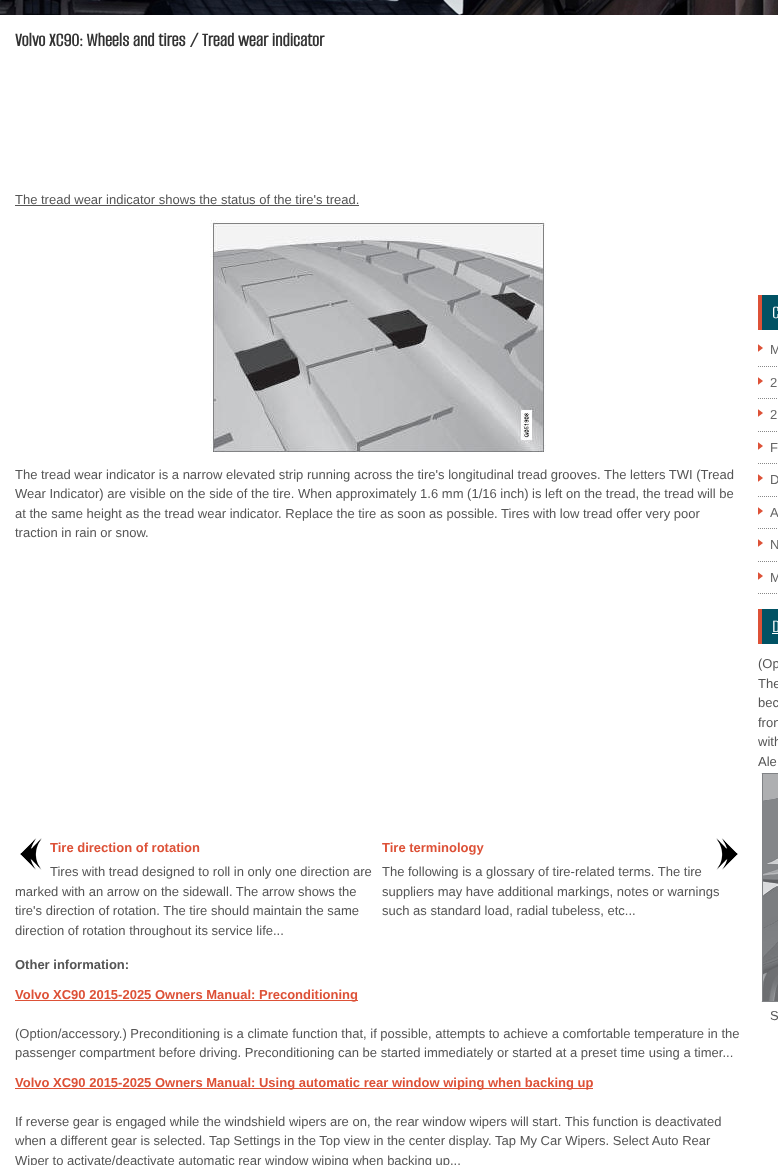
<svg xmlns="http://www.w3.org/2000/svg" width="778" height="1165">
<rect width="100%" height="100%" fill="#fff"/>
<image x="0" y="0" width="778" height="15" href="media/1.png"/>
<text x="15" y="46" style="font-family:Alumni Sans;font-size:20px;font-weight:bold;fill:#333">Volvo XC90: Wheels and tires / Tread wear indicator</text>
<text x="15" y="204" style="font-family:Liberation Sans;font-size:13px;fill:#555">The tread wear indicator shows the status of the tire's tread.</text>
<rect x="15" y="205" width="344" height="1" fill="#555"/>
<image x="210" y="220" width="336" height="232" href="media/2.png"/>
<text x="15" y="479" style="font-family:Liberation Sans;font-size:13px;fill:#555">The tread wear indicator is a narrow elevated strip running across the tire's longitudinal tread grooves. The letters TWI (Tread</text>
<text x="15" y="498" style="font-family:Liberation Sans;font-size:13px;fill:#555">Wear Indicator) are visible on the side of the tire. When approximately 1.6 mm (1/16 inch) is left on the tread, the tread will be</text>
<text x="15" y="518" style="font-family:Liberation Sans;font-size:13px;fill:#555">at the same height as the tread wear indicator. Replace the tire as soon as possible. Tires with low tread offer very poor</text>
<text x="15" y="537" style="font-family:Liberation Sans;font-size:13px;fill:#555">traction in rain or snow.</text>
<image x="20" y="838" width="22" height="32" href="media/3.png"/>
<text x="50" y="852" style="font-family:Liberation Sans;font-size:13px;font-weight:bold;fill:#dd5137">Tire direction of rotation</text>
<text x="50" y="876" style="font-family:Liberation Sans;font-size:13px;fill:#555">Tires with tread designed to roll in only one direction are</text>
<text x="15" y="896" style="font-family:Liberation Sans;font-size:13px;fill:#555">marked with an arrow on the sidewall. The arrow shows the</text>
<text x="15" y="915" style="font-family:Liberation Sans;font-size:13px;fill:#555">tire's direction of rotation. The tire should maintain the same</text>
<text x="15" y="935" style="font-family:Liberation Sans;font-size:13px;fill:#555">direction of rotation throughout its service life...</text>
<text x="382" y="852" style="font-family:Liberation Sans;font-size:13px;font-weight:bold;fill:#dd5137">Tire terminology</text>
<image x="716" y="838" width="22" height="32" href="media/4.png"/>
<text x="382" y="876" style="font-family:Liberation Sans;font-size:13px;fill:#555">The following is a glossary of tire-related terms. The tire</text>
<text x="382" y="896" style="font-family:Liberation Sans;font-size:13px;fill:#555">suppliers may have additional markings, notes or warnings</text>
<text x="382" y="915" style="font-family:Liberation Sans;font-size:13px;fill:#555">such as standard load, radial tubeless, etc...</text>
<text x="15" y="969" style="font-family:Liberation Sans;font-size:13px;font-weight:bold;fill:#555">Other information:</text>
<rect x="15" y="1000" width="343" height="1" fill="#dd5137"/>
<text x="15" y="999" style="font-family:Liberation Sans;font-size:13px;font-weight:bold;fill:#dd5137">Volvo XC90 2015-2025 Owners Manual: Preconditioning</text>
<text x="15" y="1038" style="font-family:Liberation Sans;font-size:13px;fill:#555">(Option/accessory.) Preconditioning is a climate function that, if possible, attempts to achieve a comfortable temperature in the</text>
<text x="15" y="1057" style="font-family:Liberation Sans;font-size:13px;fill:#555">passenger compartment before driving. Preconditioning can be started immediately or started at a preset time using a timer...</text>
<rect x="15" y="1088" width="578" height="1" fill="#dd5137"/>
<text x="15" y="1087" style="font-family:Liberation Sans;font-size:13px;font-weight:bold;fill:#dd5137">Volvo XC90 2015-2025 Owners Manual: Using automatic rear window wiping when backing up</text>
<text x="15" y="1126" style="font-family:Liberation Sans;font-size:13px;fill:#555">If reverse gear is engaged while the windshield wipers are on, the rear window wipers will start. This function is deactivated</text>
<text x="15" y="1145" style="font-family:Liberation Sans;font-size:13px;fill:#555">when a different gear is selected. Tap Settings in the Top view in the center display. Tap My Car Wipers. Select Auto Rear</text>
<text x="15" y="1165" style="font-family:Liberation Sans;font-size:13px;fill:#555">Wiper to activate/deactivate automatic rear window wiping when backing up...</text>
<rect x="762" y="295" width="16" height="35" fill="#015264"/>
<rect x="758" y="295" width="4" height="35" fill="#dd5137"/>
<text x="772" y="318" style="font-family:Alumni Sans;font-size:19px;font-weight:100;fill:#fff">C</text>
<image x="758" y="344" width="5" height="8" href="media/5.png"/>
<path d="M758 366.5h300" fill="none" stroke="#888" stroke-dasharray="1 1"/>
<text x="770" y="354" style="font-family:Liberation Sans;font-size:13px;fill:#666">M</text>
<image x="758" y="377" width="5" height="8" href="media/5.png"/>
<path d="M758 398.5h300" fill="none" stroke="#888" stroke-dasharray="1 1"/>
<text x="770" y="387" style="font-family:Liberation Sans;font-size:13px;fill:#666">2</text>
<image x="758" y="409" width="5" height="8" href="media/5.png"/>
<path d="M758 431.5h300" fill="none" stroke="#888" stroke-dasharray="1 1"/>
<text x="770" y="419" style="font-family:Liberation Sans;font-size:13px;fill:#666">2</text>
<image x="758" y="442" width="5" height="8" href="media/5.png"/>
<path d="M758 463.5h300" fill="none" stroke="#888" stroke-dasharray="1 1"/>
<text x="770" y="452" style="font-family:Liberation Sans;font-size:13px;fill:#666">F</text>
<image x="758" y="474" width="5" height="8" href="media/5.png"/>
<path d="M758 496.5h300" fill="none" stroke="#888" stroke-dasharray="1 1"/>
<text x="770" y="484" style="font-family:Liberation Sans;font-size:13px;fill:#666">D</text>
<image x="758" y="507" width="5" height="8" href="media/5.png"/>
<path d="M758 528.5h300" fill="none" stroke="#888" stroke-dasharray="1 1"/>
<text x="770" y="517" style="font-family:Liberation Sans;font-size:13px;fill:#666">A</text>
<image x="758" y="539" width="5" height="8" href="media/5.png"/>
<path d="M758 561.5h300" fill="none" stroke="#888" stroke-dasharray="1 1"/>
<text x="770" y="549" style="font-family:Liberation Sans;font-size:13px;fill:#666">N</text>
<image x="758" y="572" width="5" height="8" href="media/5.png"/>
<path d="M758 593.5h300" fill="none" stroke="#888" stroke-dasharray="1 1"/>
<text x="770" y="582" style="font-family:Liberation Sans;font-size:13px;fill:#666">M</text>
<rect x="762" y="609" width="16" height="35" fill="#015264"/>
<rect x="758" y="609" width="4" height="35" fill="#dd5137"/>
<text x="772" y="632" style="font-family:Alumni Sans;font-size:19px;font-weight:100;fill:#fff">D</text>
<rect x="772" y="633" width="6" height="1" fill="#fff"/>
<text x="758" y="668" style="font-family:Liberation Sans;font-size:13px;fill:#555">(Op</text>
<text x="758" y="688" style="font-family:Liberation Sans;font-size:13px;fill:#555">The</text>
<text x="758" y="707" style="font-family:Liberation Sans;font-size:13px;fill:#555">bec</text>
<text x="758" y="727" style="font-family:Liberation Sans;font-size:13px;fill:#555">fron</text>
<text x="758" y="746" style="font-family:Liberation Sans;font-size:13px;fill:#555">with</text>
<text x="758" y="766" style="font-family:Liberation Sans;font-size:13px;fill:#555">Ale</text>
<image x="761" y="773" width="17" height="229" href="media/6.png"/>
<text x="770" y="1020" style="font-family:Liberation Sans;font-size:13px;fill:#555">S</text>
</svg>
